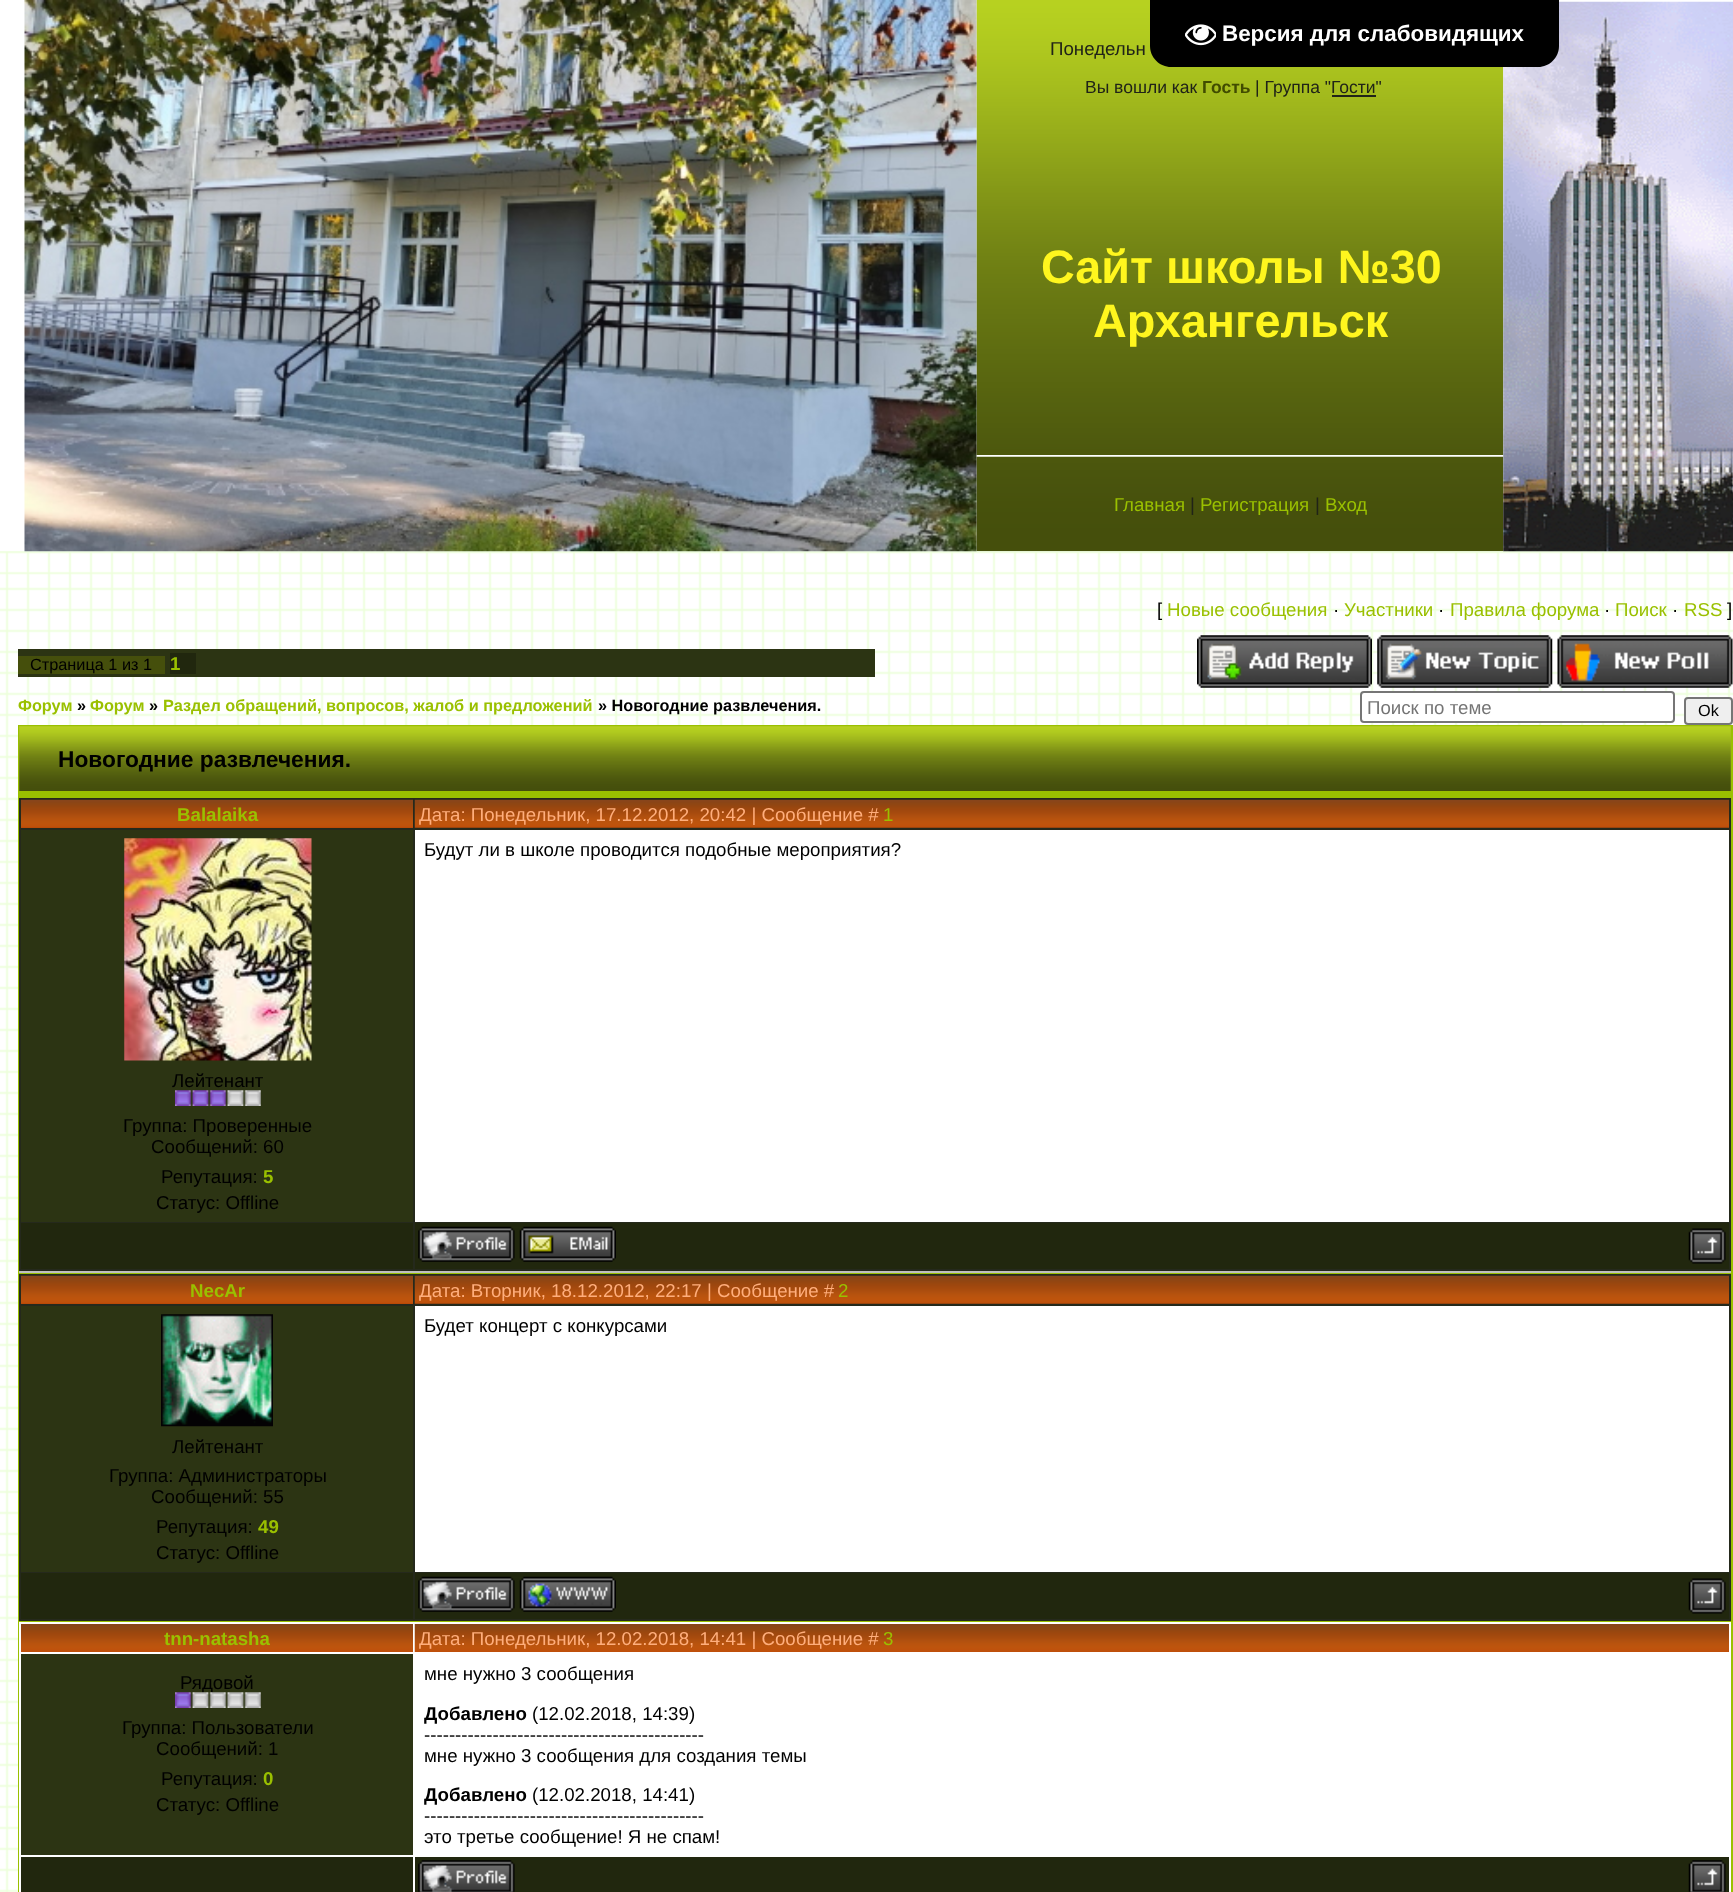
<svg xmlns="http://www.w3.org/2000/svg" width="1733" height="1892">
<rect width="100%" height="100%" fill="#fff"/>
<image x="0" y="575" width="1733" height="1317" href="media/1.png"/>
<image x="976" y="0" width="528" height="133" href="media/4.png"/>
<image x="976" y="133" width="528" height="322" href="media/6.png"/>
<image x="976" y="456" width="528" height="96" href="media/7.png"/>
<image x="0" y="551" width="1733" height="24" href="media/8.png"/>
<image x="1503" y="1" width="230" height="551" href="media/5.png"/>
<path d="M1150 0h409v46c0 11.5-9.5 21-21 21h-367c-11.5 0-21-9.5-21-21z" fill="#000"/>
<image x="1185" y="24" width="31" height="22" href="media/2.png"/>
<text x="1222" y="41" style="font-family:Liberation Sans;font-size:22.4px;font-weight:bold;fill:#fff">Версия для слабовидящих</text>
<image x="24" y="0" width="953" height="552" href="media/3.png"/>
<text x="1050" y="55" style="font-family:Liberation Sans;font-size:18.7px;fill:#202318">Понедельн</text>
<text x="1085" y="93" style="font-family:Liberation Sans;font-size:17.5px;fill:#202318">Вы вошли как</text>
<text x="1202" y="93" style="font-family:Liberation Sans;font-size:17.5px;font-weight:bold;fill:#414c00">Гость</text>
<text x="1255" y="93" style="font-family:Liberation Sans;font-size:17.5px;fill:#202318">| Группа "Гости"</text>
<rect x="1332" y="95" width="44" height="2" fill="#202318"/>
<text x="1041" y="283" style="font-family:Liberation Sans;font-size:46.75px;font-weight:bold;fill:#fff61e">Сайт школы №30</text>
<text x="1093" y="337" style="font-family:Liberation Sans;font-size:46.75px;font-weight:bold;fill:#fff61e">Архангельск</text>
<text x="1114" y="511" style="font-family:Liberation Sans;font-size:18.7px;fill:#9ac000">Главная</text>
<text x="1190" y="511" style="font-family:Liberation Sans;font-size:18.7px;fill:#202318">|</text>
<text x="1200" y="511" style="font-family:Liberation Sans;font-size:18.7px;fill:#9ac000">Регистрация</text>
<text x="1315" y="511" style="font-family:Liberation Sans;font-size:18.7px;fill:#202318">|</text>
<text x="1325" y="511" style="font-family:Liberation Sans;font-size:18.7px;fill:#9ac000">Вход</text>
<text x="1157" y="616" style="font-family:Liberation Sans;font-size:18.7px;fill:#000">[</text>
<text x="1167" y="616" style="font-family:Liberation Sans;font-size:18.7px;fill:#9ac000">Новые сообщения</text>
<text x="1333" y="616" style="font-family:Liberation Sans;font-size:18.7px;fill:#000">·</text>
<text x="1344" y="616" style="font-family:Liberation Sans;font-size:18.7px;fill:#9ac000">Участники</text>
<text x="1438" y="616" style="font-family:Liberation Sans;font-size:18.7px;fill:#000">·</text>
<text x="1450" y="616" style="font-family:Liberation Sans;font-size:18.7px;fill:#9ac000">Правила форума</text>
<text x="1604" y="616" style="font-family:Liberation Sans;font-size:18.7px;fill:#000">·</text>
<text x="1615" y="616" style="font-family:Liberation Sans;font-size:18.7px;fill:#9ac000">Поиск</text>
<text x="1672" y="616" style="font-family:Liberation Sans;font-size:18.7px;fill:#000">·</text>
<text x="1684" y="616" style="font-family:Liberation Sans;font-size:18.7px;fill:#9ac000">RSS</text>
<text x="1727" y="616" style="font-family:Liberation Sans;font-size:18.7px;fill:#000">]</text>
<rect x="18" y="649" width="857" height="28" fill="#2c3413"/>
<rect x="18" y="656" width="147" height="18" fill="#454f0c"/>
<text x="30" y="670" style="font-family:Liberation Sans;font-size:16.3px;fill:#000">Страница 1 из 1</text>
<rect x="170" y="653" width="26" height="21" fill="#21270e"/>
<text x="170" y="670" style="font-family:Liberation Sans;font-size:18.7px;font-weight:bold;fill:#9ac000">1</text>
<image x="1197" y="635" width="175" height="53" href="media/9.png"/>
<image x="1377" y="635" width="176" height="53" href="media/10.png"/>
<image x="1557" y="635" width="176" height="53" href="media/11.png"/>
<text x="18" y="711" style="font-family:Liberation Sans;font-size:16.3px;font-weight:bold;fill:#9ac000">Форум</text>
<text x="77" y="711" style="font-family:Liberation Sans;font-size:16.3px;font-weight:bold;fill:#000">»</text>
<text x="90" y="711" style="font-family:Liberation Sans;font-size:16.3px;font-weight:bold;fill:#9ac000">Форум</text>
<text x="149" y="711" style="font-family:Liberation Sans;font-size:16.3px;font-weight:bold;fill:#000">»</text>
<text x="163" y="711" style="font-family:Liberation Sans;font-size:16.3px;font-weight:bold;fill:#9ac000">Раздел обращений, вопросов, жалоб и предложений</text>
<text x="598" y="711" style="font-family:Liberation Sans;font-size:16.3px;font-weight:bold;fill:#000">» Новогодние развлечения.</text>
<rect x="1361" y="692" width="313" height="30" rx="3" fill="#fff" stroke="#767676" stroke-width="2"/>
<text x="1367" y="714" style="font-family:Liberation Sans;font-size:18.7px;fill:#757575">Поиск по теме</text>
<rect x="1685" y="698" width="47" height="26" rx="3" fill="#efefef" stroke="#767676" stroke-width="2"/>
<text x="1698" y="716" style="font-family:Liberation Sans;font-size:16.3px;fill:#000">Ok</text>
<rect x="18" y="725" width="1715" height="1167" fill="#9ac000"/>
<rect x="19" y="726" width="1712" height="65" fill="#9fb61c"/>
<image x="19" y="726" width="1712" height="65" href="media/12.png"/>
<text x="58" y="767" style="font-family:Liberation Sans;font-size:22.75px;font-weight:bold;fill:#000">Новогодние развлечения.</text>
<rect x="19" y="798" width="1712" height="473" fill="#25291c"/>
<rect x="19" y="1271" width="1712" height="2" fill="#c0c0c0"/>
<rect x="21" y="827" width="392" height="1" fill="#ba4a07"/>
<image x="21" y="799" width="392" height="28" href="media/13.png"/>
<text x="177" y="821" style="font-family:Liberation Sans;font-size:18.7px;font-weight:bold;fill:#9ac000">Balalaika</text>
<image x="414" y="799" width="1315" height="29" href="media/14.png"/>
<text x="419" y="821" style="font-family:Liberation Sans;font-size:18.7px;fill:#ffae7c">Дата: Понедельник, 17.12.2012, 20:42 | Сообщение #</text>
<text x="883" y="821" style="font-family:Liberation Sans;font-size:18.7px;fill:#9ac000">1</text>
<rect x="415" y="830" width="1314" height="392" fill="#fff"/>
<text x="424" y="856" style="font-family:Liberation Sans;font-size:18.7px;fill:#000">Будут ли в школе проводится подобные мероприятия?</text>
<rect x="21" y="830" width="392" height="392" fill="#2c3413"/>
<image x="124" y="838" width="188" height="223" href="media/15.png"/>
<text x="172" y="1087" style="font-family:Liberation Sans;font-size:18.7px;fill:#000">Лейтенант</text>
<image x="175" y="1090" width="86" height="16" href="media/16.png"/>
<text x="123" y="1132" style="font-family:Liberation Sans;font-size:18.7px;fill:#000">Группа: Проверенные</text>
<text x="151" y="1153" style="font-family:Liberation Sans;font-size:18.7px;fill:#000">Сообщений: 60</text>
<text x="161" y="1183" style="font-family:Liberation Sans;font-size:18.7px;fill:#000">Репутация:</text>
<text x="263" y="1183" style="font-family:Liberation Sans;font-size:18.7px;font-weight:bold;fill:#9ac000">5</text>
<text x="156" y="1209" style="font-family:Liberation Sans;font-size:18.7px;fill:#000">Статус: Offline</text>
<rect x="21" y="1223" width="392" height="46" fill="#21270e"/>
<rect x="415" y="1223" width="1314" height="46" fill="#21270e"/>
<image x="418" y="1226" width="97" height="36" href="media/17.png"/>
<image x="519" y="1226" width="97" height="36" href="media/18.png"/>
<image x="1688" y="1228" width="38" height="36" href="media/19.png"/>
<rect x="19" y="1274" width="1712" height="347" fill="#25291c"/>
<rect x="21" y="1303" width="392" height="1" fill="#ba4a07"/>
<image x="21" y="1275" width="392" height="28" href="media/20.png"/>
<text x="190" y="1297" style="font-family:Liberation Sans;font-size:18.7px;font-weight:bold;fill:#9ac000">NecAr</text>
<image x="414" y="1275" width="1315" height="29" href="media/21.png"/>
<text x="419" y="1297" style="font-family:Liberation Sans;font-size:18.7px;fill:#ffae7c">Дата: Вторник, 18.12.2012, 22:17 | Сообщение #</text>
<text x="838" y="1297" style="font-family:Liberation Sans;font-size:18.7px;fill:#9ac000">2</text>
<rect x="415" y="1306" width="1314" height="266" fill="#fff"/>
<text x="424" y="1332" style="font-family:Liberation Sans;font-size:18.7px;fill:#000">Будет концерт с конкурсами</text>
<rect x="21" y="1306" width="392" height="266" fill="#2c3413"/>
<image x="161" y="1314" width="112" height="113" href="media/22.png"/>
<text x="172" y="1453" style="font-family:Liberation Sans;font-size:18.7px;fill:#000">Лейтенант</text>
<text x="109" y="1482" style="font-family:Liberation Sans;font-size:18.7px;fill:#000">Группа: Администраторы</text>
<text x="151" y="1503" style="font-family:Liberation Sans;font-size:18.7px;fill:#000">Сообщений: 55</text>
<text x="156" y="1533" style="font-family:Liberation Sans;font-size:18.7px;fill:#000">Репутация:</text>
<text x="258" y="1533" style="font-family:Liberation Sans;font-size:18.7px;font-weight:bold;fill:#9ac000">49</text>
<text x="156" y="1559" style="font-family:Liberation Sans;font-size:18.7px;fill:#000">Статус: Offline</text>
<rect x="21" y="1573" width="392" height="46" fill="#21270e"/>
<rect x="415" y="1573" width="1314" height="46" fill="#21270e"/>
<image x="418" y="1576" width="97" height="36" href="media/17.png"/>
<image x="519" y="1576" width="97" height="36" href="media/23.png"/>
<image x="1688" y="1578" width="38" height="36" href="media/19.png"/>
<rect x="19" y="1622" width="1712" height="270" fill="#fff"/>
<image x="21" y="1624" width="392" height="28" href="media/24.png"/>
<text x="164" y="1645" style="font-family:Liberation Sans;font-size:18.7px;font-weight:bold;fill:#9ac000">tnn-natasha</text>
<image x="414" y="1624" width="1315" height="28" href="media/25.png"/>
<text x="419" y="1645" style="font-family:Liberation Sans;font-size:18.7px;fill:#ffae7c">Дата: Понедельник, 12.02.2018, 14:41 | Сообщение #</text>
<text x="883" y="1645" style="font-family:Liberation Sans;font-size:18.7px;fill:#9ac000">3</text>
<rect x="21" y="1654" width="392" height="201" fill="#2c3413"/>
<text x="180" y="1689" style="font-family:Liberation Sans;font-size:18.7px;fill:#000">Рядовой</text>
<image x="175" y="1692" width="86" height="16" href="media/26.png"/>
<text x="122" y="1734" style="font-family:Liberation Sans;font-size:18.7px;fill:#000">Группа: Пользователи</text>
<text x="156" y="1755" style="font-family:Liberation Sans;font-size:18.7px;fill:#000">Сообщений: 1</text>
<text x="161" y="1785" style="font-family:Liberation Sans;font-size:18.7px;fill:#000">Репутация:</text>
<text x="263" y="1785" style="font-family:Liberation Sans;font-size:18.7px;font-weight:bold;fill:#9ac000">0</text>
<text x="156" y="1811" style="font-family:Liberation Sans;font-size:18.7px;fill:#000">Статус: Offline</text>
<text x="424" y="1680" style="font-family:Liberation Sans;font-size:18.7px;fill:#000">мне нужно 3 сообщения</text>
<text x="424" y="1720" style="font-family:Liberation Sans;font-size:18.7px;font-weight:bold;fill:#000">Добавлено</text>
<text x="532" y="1720" style="font-family:Liberation Sans;font-size:18.7px;fill:#000">(12.02.2018, 14:39)</text>
<text x="424" y="1741" style="font-family:Liberation Sans;font-size:18.7px;fill:#000">---------------------------------------------</text>
<text x="424" y="1762" style="font-family:Liberation Sans;font-size:18.7px;fill:#000">мне нужно 3 сообщения для создания темы</text>
<text x="424" y="1801" style="font-family:Liberation Sans;font-size:18.7px;font-weight:bold;fill:#000">Добавлено</text>
<text x="532" y="1801" style="font-family:Liberation Sans;font-size:18.7px;fill:#000">(12.02.2018, 14:41)</text>
<text x="424" y="1822" style="font-family:Liberation Sans;font-size:18.7px;fill:#000">---------------------------------------------</text>
<text x="424" y="1843" style="font-family:Liberation Sans;font-size:18.7px;fill:#000">это третье сообщение! Я не спам!</text>
<rect x="21" y="1857" width="392" height="35" fill="#21270e"/>
<rect x="415" y="1857" width="1314" height="35" fill="#21270e"/>
<image x="418" y="1860" width="97" height="32" href="media/27.png"/>
<image x="1688" y="1860" width="38" height="32" href="media/28.png"/>
</svg>
